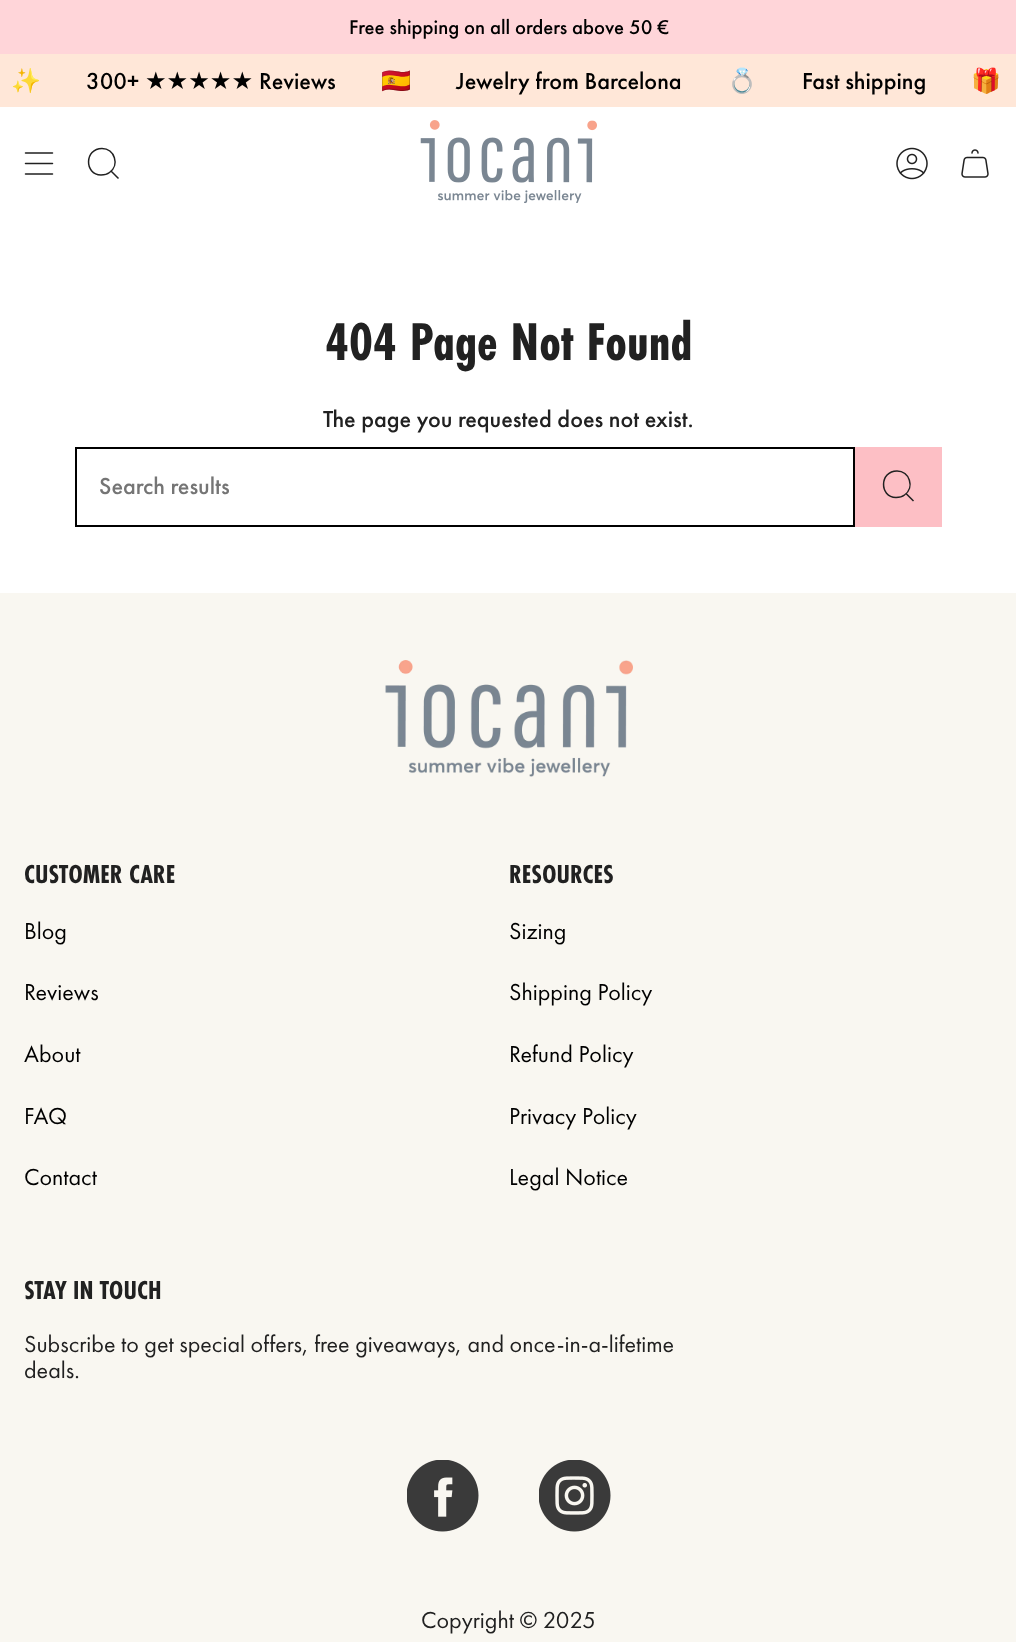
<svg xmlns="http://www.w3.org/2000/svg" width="1016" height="1642">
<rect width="100%" height="100%" fill="#fff"/>
<rect width="1016" height="54" fill="#ffd5d9"/>
<text x="349" y="34" style="font-family:Futura PT;font-size:20.75px;font-weight:500;fill:#000">Free shipping on all orders above 50 €</text>
<rect y="54" width="1016" height="53" fill="#ffe7d8"/>
<text x="11" y="89" style="font-family:Noto Color Emoji;font-size:24.1px;fill:#000">✨</text>
<text x="86" y="89" style="font-family:Futura PT;font-size:24.1px;font-weight:500;fill:#000">300+</text>
<text x="145" y="89" style="font-family:DejaVu Sans;font-size:24.1px;fill:#000">★★★★★</text>
<text x="259" y="89" style="font-family:Futura PT;font-size:24.1px;font-weight:500;fill:#000">Reviews</text>
<text x="381" y="89" style="font-family:Noto Color Emoji;font-size:24.1px;fill:#000">🇪🇸</text>
<text x="456" y="89" style="font-family:Futura PT;font-size:24.1px;font-weight:500;fill:#000">Jewelry from Barcelona</text>
<text x="727" y="89" style="font-family:Noto Color Emoji;font-size:24.1px;fill:#000">💍</text>
<text x="802" y="89" style="font-family:Futura PT;font-size:24.1px;font-weight:500;fill:#000">Fast shipping</text>
<text x="971" y="89" style="font-family:Noto Color Emoji;font-size:24.1px;fill:#000">🎁</text>
<path d="M25.5 153h27m-27 10.5h27m-27 10.5h27" fill="none" stroke="#212121" stroke-width="1.5" stroke-linecap="round" stroke-linejoin="round"/>
<path d="M102 148.5c12.5 0 18 16.5 7.5 24c-2.5 2-5.5 2.5-8.5 2.5c-17-.5-16.5-26.5 1-26.5zm9 22.5l7.5 7.5" fill="none" stroke="#212121" stroke-width="1.5"/>
<image x="420" y="120" width="177" height="84" href="media/1.png"/>
<image x="896" y="147" width="32" height="33" href="media/2.png"/>
<image x="961" y="149" width="28" height="29" href="media/3.png"/>
<text x="325" y="360" style="font-family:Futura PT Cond;font-size:55.25px;font-weight:bold;fill:#212121">404 Page Not Found</text>
<text x="323" y="427" style="font-family:Futura PT;font-size:24.1px;font-weight:500;fill:#212121">The page you requested does not exist.</text>
<rect x="76" y="448" width="778" height="78" fill="none" stroke="#000" stroke-width="2"/>
<text x="99" y="494" style="font-family:Futura PT;font-size:24.1px;font-weight:500;fill:#757575">Search results</text>
<rect x="855" y="447" width="87" height="80" fill="#fdbfc5"/>
<path d="M897 471c12.5 0 18 16.5 7.5 24c-2.5 2-5.5 2.5-8.5 2.5c-17-.5-16.5-26.5 1-26.5zm9 22.5l7.5 7.5" fill="none" stroke="#212121" stroke-width="1.5"/>
<rect y="593" width="1016" height="1049" fill="#f9f7f1"/>
<image x="385" y="660" width="248" height="117" href="media/4.png"/>
<text x="24" y="883" style="font-family:Futura PT Cond;font-size:27px;font-weight:bold;fill:#212121">CUSTOMER CARE</text>
<text x="24" y="939" style="font-family:Futura PT;font-size:24px;fill:#000">Blog</text>
<text x="24" y="1000" style="font-family:Futura PT;font-size:24px;fill:#000">Reviews</text>
<text x="24" y="1062" style="font-family:Futura PT;font-size:24px;fill:#000">About</text>
<text x="24" y="1124" style="font-family:Futura PT;font-size:24px;fill:#000">FAQ</text>
<text x="24" y="1185" style="font-family:Futura PT;font-size:24px;fill:#000">Contact</text>
<text x="509" y="883" style="font-family:Futura PT Cond;font-size:27px;font-weight:bold;fill:#212121">RESOURCES</text>
<text x="509" y="939" style="font-family:Futura PT;font-size:24px;fill:#000">Sizing</text>
<text x="509" y="1000" style="font-family:Futura PT;font-size:24px;fill:#000">Shipping Policy</text>
<text x="509" y="1062" style="font-family:Futura PT;font-size:24px;fill:#000">Refund Policy</text>
<text x="509" y="1124" style="font-family:Futura PT;font-size:24px;fill:#000">Privacy Policy</text>
<text x="509" y="1185" style="font-family:Futura PT;font-size:24px;fill:#000">Legal Notice</text>
<text x="24" y="1299" style="font-family:Futura PT Cond;font-size:27px;font-weight:bold;fill:#212121">STAY IN TOUCH</text>
<text x="24" y="1352" style="font-family:Futura PT;font-size:24px;fill:#212121">Subscribe to get special offers, free giveaways, and once-in-a-lifetime</text>
<text x="24" y="1378" style="font-family:Futura PT;font-size:24px;fill:#212121">deals.</text>
<image x="407" y="1460" width="72" height="72" href="media/5.png"/>
<image x="539" y="1460" width="72" height="72" href="media/6.png"/>
<text x="421" y="1628" style="font-family:Futura PT;font-size:24px;fill:#212121">Copyright © 2025</text>
</svg>
